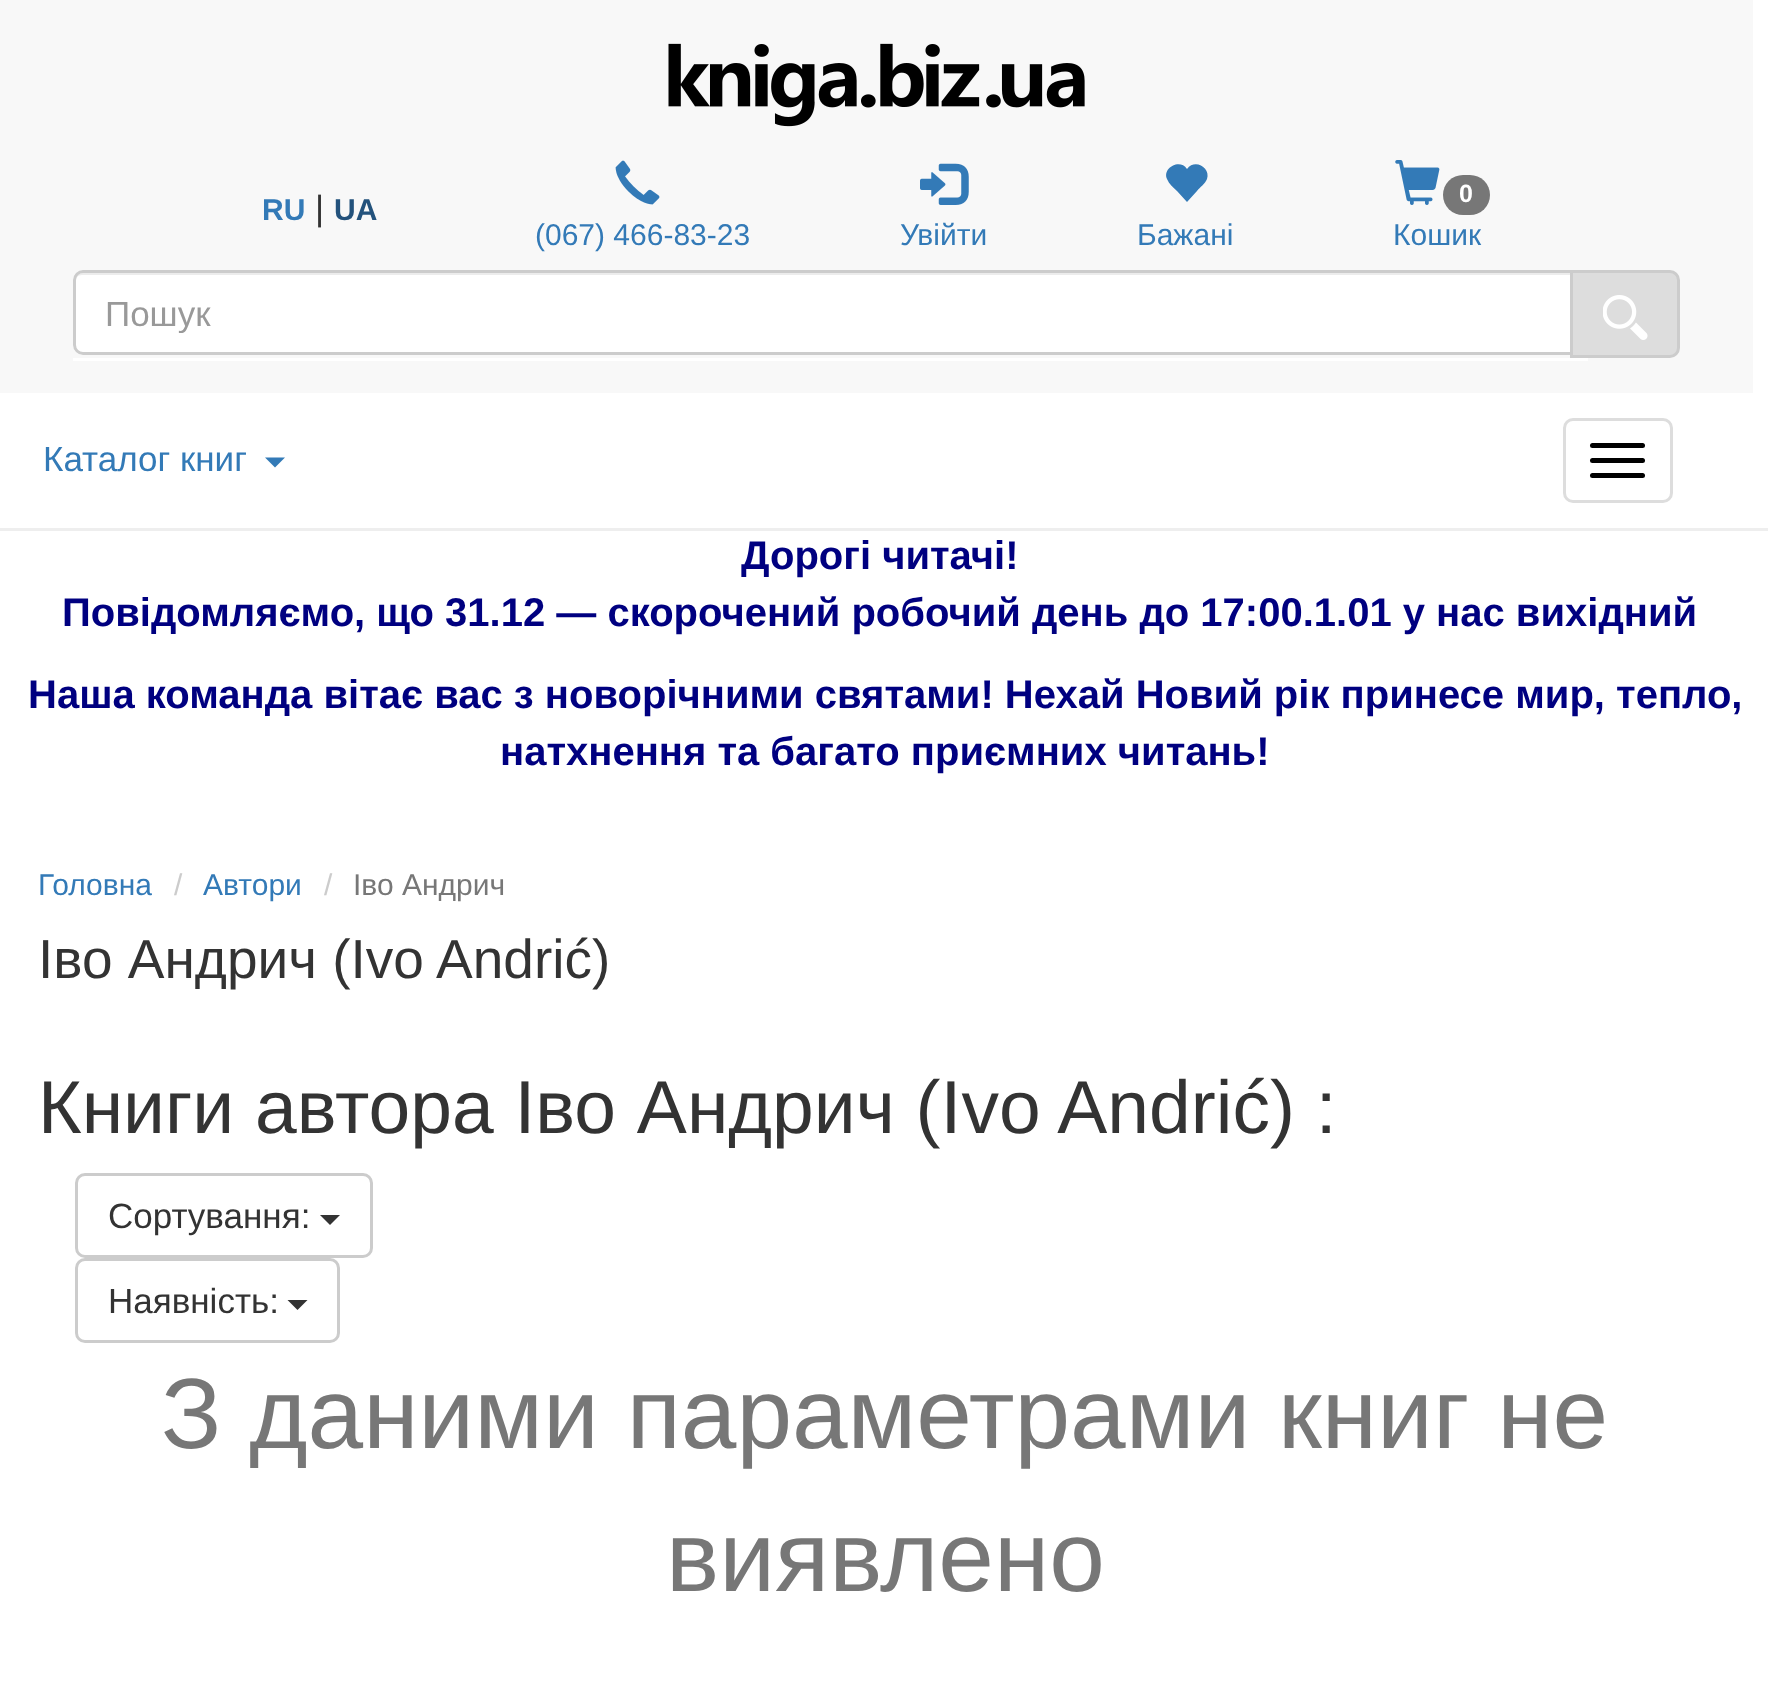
<svg xmlns="http://www.w3.org/2000/svg" width="1768" height="1688">
<defs>
<clipPath id="clip1"><rect x="105" y="293" width="1435" height="40"/></clipPath>
</defs>
<rect width="100%" height="100%" fill="#fff"/>
<rect width="1753" height="393" fill="#f8f8f8"/>
<image x="668" y="43" width="417" height="84" href="media/1.png"/>
<text x="262" y="220" style="font-family:Liberation Sans;font-size:30px;font-weight:bold;fill:#337ab7">RU</text>
<text x="315" y="220" style="font-family:Liberation Sans;font-size:35px;fill:#333">|</text>
<text x="334" y="220" style="font-family:Liberation Sans;font-size:30px;font-weight:bold;fill:#23527c">UA</text>
<image x="1395" y="160" width="45" height="45" href="media/2.png"/>
<rect x="1443" y="175" width="47" height="40" rx="20" fill="#777"/>
<text x="1459" y="202" style="font-family:Liberation Sans;font-size:25px;font-weight:bold;fill:#fff">0</text>
<text x="1393" y="245" style="font-family:Liberation Sans;font-size:30px;fill:#337ab7">Кошик</text>
<image x="615" y="160" width="45" height="45" href="media/3.png"/>
<text x="535" y="245" style="font-family:Liberation Sans;font-size:30px;fill:#337ab7">(067) 466-83-23</text>
<image x="920" y="163" width="49" height="42" href="media/4.png"/>
<text x="900" y="245" style="font-family:Liberation Sans;font-size:30px;fill:#337ab7">Увійти</text>
<path d="M1187 169c8-11 24-1 20 10c-2 5-7 8-10 12l-10 11l-10-11c-4-4-8-7-10-12c-5-11 13-21 20-10z" fill="#337ab7"/>
<text x="1137" y="245" style="font-family:Liberation Sans;font-size:30px;fill:#337ab7">Бажані</text>
<path d="M83 270h1490v85h-1490c-5.5 0-10-4.5-10-10v-65c0-5.5 4.5-10 10-10z" fill="#fff"/>
<path d="M82 275h1488v-2h-1487c-5 0-8 4-8 9c0-4 3-7 7-7z" fill="#ececec"/>
<path d="M83 271.5h1488.5v82h-1488.5c-4.5 0-8.5-4-8.5-8.5v-65c0-4.5 4-8.5 8.5-8.5z" fill="none" stroke="#ccc" stroke-width="3"/>
<g clip-path="url(#clip1)">
<text x="105" y="326" style="font-family:Liberation Sans;font-size:35px;fill:#999">Пошук</text>
</g>
<path d="M1571.5 271.5h98.5c4.5 0 8.5 4 8.5 8.5v68c0 4.5-4 8.5-8.5 8.5h-98.5z" fill="#ddd" stroke="#ccc" stroke-width="3"/>
<image x="1603" y="295" width="45" height="45" href="media/5.png"/>
<rect x="73" y="358" width="1515" height="3" fill="#fff"/>
<text x="43" y="471" style="font-family:Liberation Sans;font-size:35px;fill:#337ab7">Каталог книг</text>
<path d="M265 457.5h20l-10 10z" fill="#337ab7"/>
<rect x="1564.5" y="419.5" width="107" height="82" rx="8.5" fill="none" stroke="#ddd" stroke-width="3"/>
<rect x="1590" y="443" width="55" height="5" rx="2.5" fill="#000"/>
<rect x="1590" y="458" width="55" height="5" rx="2.5" fill="#000"/>
<rect x="1590" y="473" width="55" height="5" rx="2.5" fill="#000"/>
<rect y="528" width="1768" height="3" fill="#eee"/>
<text x="741" y="569" style="font-family:Liberation Sans;font-size:40px;font-weight:bold;fill:#000080">Дорогі читачі!</text>
<text x="62" y="626" style="font-family:Liberation Sans;font-size:40px;font-weight:bold;fill:#000080">Повідомляємо, що 31.12 — скорочений робочий день до 17:00.1.01 у нас вихідний</text>
<text x="28" y="708" style="font-family:Liberation Sans;font-size:40px;font-weight:bold;fill:#000080">Наша команда вітає вас з новорічними святами! Нехай Новий рік принесе мир, тепло,</text>
<text x="500" y="765" style="font-family:Liberation Sans;font-size:40px;font-weight:bold;fill:#000080">натхнення та багато приємних читань!</text>
<text x="38" y="895" style="font-family:Liberation Sans;font-size:30px;fill:#337ab7">Головна</text>
<text x="174" y="895" style="font-family:Liberation Sans;font-size:30px;fill:#ccc">/</text>
<text x="203" y="895" style="font-family:Liberation Sans;font-size:30px;fill:#337ab7">Автори</text>
<text x="324" y="895" style="font-family:Liberation Sans;font-size:30px;fill:#ccc">/</text>
<text x="353" y="895" style="font-family:Liberation Sans;font-size:30px;fill:#777">Іво Андрич</text>
<text x="38" y="978" style="font-family:Liberation Sans;font-size:55px;fill:#333">Іво Андрич (Ivo Andrić)</text>
<text x="38" y="1133" style="font-family:Liberation Sans;font-size:75px;fill:#333">Книги автора Іво Андрич (Ivo Andrić) :</text>
<rect x="76.5" y="1174.5" width="295" height="82" rx="8.5" fill="none" stroke="#ccc" stroke-width="3"/>
<text x="108" y="1228" style="font-family:Liberation Sans;font-size:35px;fill:#333">Сортування:</text>
<path d="M320 1215h20l-10 10z" fill="#333"/>
<rect x="76.5" y="1259.5" width="262" height="82" rx="8.5" fill="none" stroke="#ccc" stroke-width="3"/>
<text x="108" y="1313" style="font-family:Liberation Sans;font-size:35px;fill:#333">Наявність:</text>
<path d="M287.5 1300h20l-10 10z" fill="#333"/>
<text x="161" y="1448" style="font-family:Liberation Sans;font-size:100px;fill:#777">З даними параметрами книг не</text>
<text x="666" y="1591" style="font-family:Liberation Sans;font-size:100px;fill:#777">виявлено</text>
</svg>
